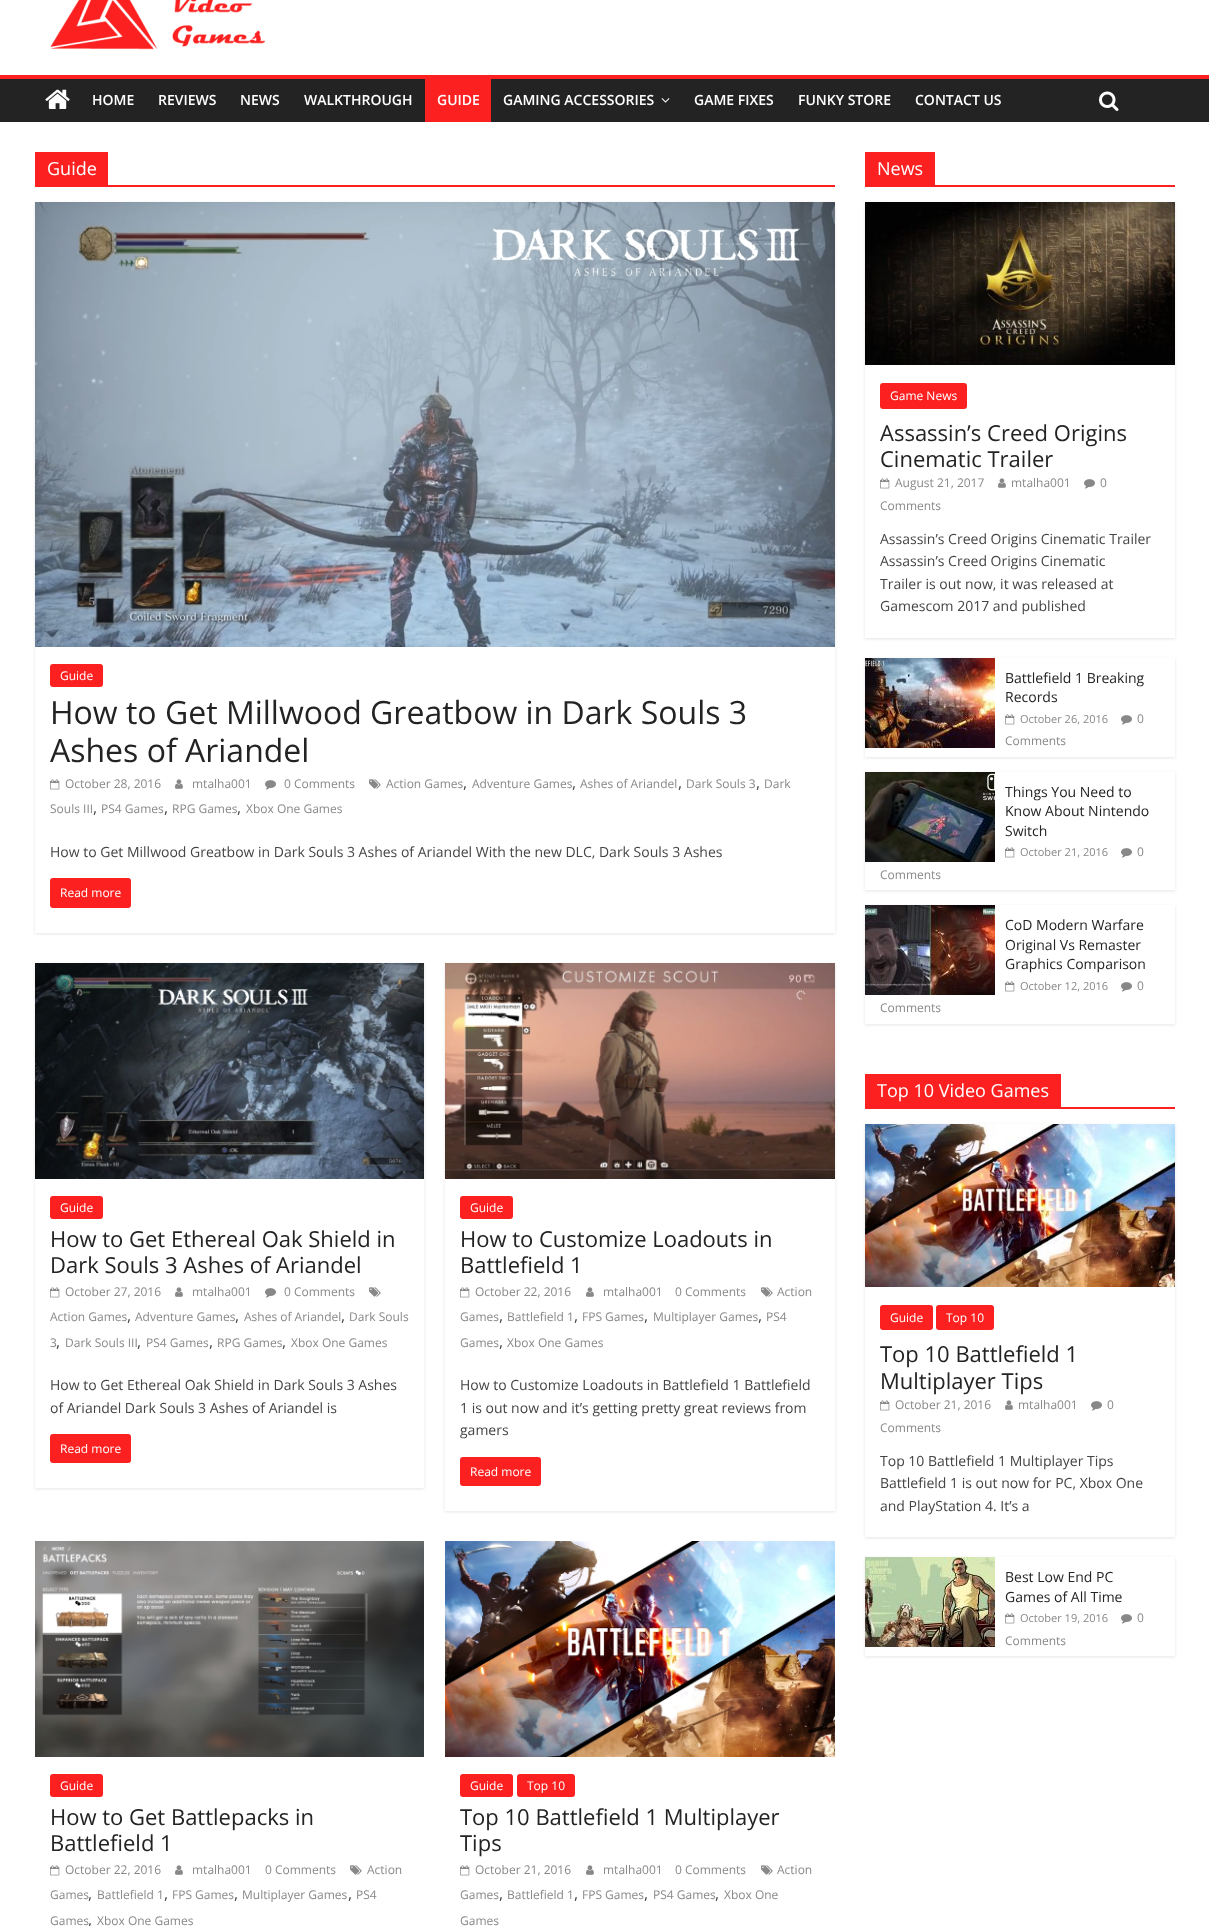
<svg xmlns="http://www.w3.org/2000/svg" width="1209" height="1926">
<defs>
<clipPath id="clip1"><path d="M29 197h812v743h-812zm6 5h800v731h-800z" clip-rule="evenodd"/></clipPath>
<clipPath id="clip2"><path d="M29 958h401v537h-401zm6 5h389v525h-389z" clip-rule="evenodd"/></clipPath>
<clipPath id="clip3"><path d="M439 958h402v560h-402zm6 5h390v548h-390z" clip-rule="evenodd"/></clipPath>
<clipPath id="clip4"><path d="M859 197h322v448h-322zm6 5h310v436h-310z" clip-rule="evenodd"/></clipPath>
<clipPath id="clip5"><path d="M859 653h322v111h-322zm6 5h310v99h-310z" clip-rule="evenodd"/></clipPath>
<clipPath id="clip6"><path d="M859 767h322v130h-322zm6 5h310v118h-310z" clip-rule="evenodd"/></clipPath>
<clipPath id="clip7"><path d="M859 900h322v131h-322zm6 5h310v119h-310z" clip-rule="evenodd"/></clipPath>
<clipPath id="clip8"><path d="M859 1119h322v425h-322zm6 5h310v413h-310z" clip-rule="evenodd"/></clipPath>
<clipPath id="clip9"><path d="M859 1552h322v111h-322zm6 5h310v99h-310z" clip-rule="evenodd"/></clipPath>
</defs>
<rect width="100%" height="100%" fill="#fff"/>
<image x="50" y="0" width="215" height="50" href="media/1.png"/>
<rect y="79" width="1209" height="43" fill="#232323"/>
<rect y="75" width="1209" height="4" fill="#fc2020"/>
<image x="45" y="89" width="25" height="20" href="media/2.png"/>
<text x="92" y="105" style="font-family:Open Sans;font-size:14px;font-weight:600;fill:#fff">HOME</text>
<text x="158" y="105" style="font-family:Open Sans;font-size:14px;font-weight:600;fill:#fff">REVIEWS</text>
<text x="240" y="105" style="font-family:Open Sans;font-size:14px;font-weight:600;fill:#fff">NEWS</text>
<text x="304" y="105" style="font-family:Open Sans;font-size:14px;font-weight:600;fill:#fff">WALKTHROUGH</text>
<rect x="425" y="79" width="66" height="43" fill="#fc2020"/>
<text x="437" y="105" style="font-family:Open Sans;font-size:14px;font-weight:600;fill:#fff">GUIDE</text>
<text x="503" y="105" style="font-family:Open Sans;font-size:14px;font-weight:600;fill:#fff">GAMING ACCESSORIES</text>
<image x="661" y="98" width="9" height="5" href="media/3.png"/>
<text x="694" y="105" style="font-family:Open Sans;font-size:14px;font-weight:600;fill:#fff">GAME FIXES</text>
<text x="798" y="105" style="font-family:Open Sans;font-size:14px;font-weight:600;fill:#fff">FUNKY STORE</text>
<text x="915" y="105" style="font-family:Open Sans;font-size:14px;font-weight:600;fill:#fff">CONTACT US</text>
<image x="1099" y="91" width="20" height="20" href="media/4.png"/>
<rect x="35" y="185" width="800" height="2" fill="#fc2020"/>
<rect x="35" y="152" width="73" height="33" fill="#fc2020"/>
<text x="47" y="175" style="font-family:Open Sans;font-size:18px;fill:#fff">Guide</text>
<g clip-path="url(#clip1)">
<rect x="35" y="203" width="800" height="731" fill="#0000001a" filter="blur(1.5px)"/>
</g>
<image x="35" y="202" width="800" height="445" href="media/5.png"/>
<rect x="50" y="664" width="53" height="23" rx="3" fill="#fc2020"/>
<text x="60" y="680" style="font-family:Open Sans;font-size:12px;fill:#fff">Guide</text>
<text x="50" y="724" style="font-family:Open Sans;font-size:32px;fill:#232323">How to Get Millwood Greatbow in Dark Souls 3</text>
<text x="50" y="762" style="font-family:Open Sans;font-size:32px;fill:#232323">Ashes of Ariandel</text>
<image x="369" y="779" width="12" height="10" href="media/6.png"/>
<text x="386" y="788" style="font-family:Open Sans;font-size:12px;fill:#888">Action Games</text>
<text x="463" y="788" style="font-family:Open Sans;font-size:16px;fill:#444">,</text>
<text x="472" y="788" style="font-family:Open Sans;font-size:12px;fill:#888">Adventure Games</text>
<text x="572" y="788" style="font-family:Open Sans;font-size:16px;fill:#444">,</text>
<text x="580" y="788" style="font-family:Open Sans;font-size:12px;fill:#888">Ashes of Ariandel</text>
<text x="678" y="788" style="font-family:Open Sans;font-size:16px;fill:#444">,</text>
<text x="686" y="788" style="font-family:Open Sans;font-size:12px;fill:#888">Dark Souls 3</text>
<text x="756" y="788" style="font-family:Open Sans;font-size:16px;fill:#444">,</text>
<text x="764" y="788" style="font-family:Open Sans;font-size:12px;fill:#888">Dark</text>
<text x="50" y="813" style="font-family:Open Sans;font-size:12px;fill:#888">Souls III</text>
<text x="93" y="813" style="font-family:Open Sans;font-size:16px;fill:#444">,</text>
<text x="101" y="813" style="font-family:Open Sans;font-size:12px;fill:#888">PS4 Games</text>
<text x="164" y="813" style="font-family:Open Sans;font-size:16px;fill:#444">,</text>
<text x="172" y="813" style="font-family:Open Sans;font-size:12px;fill:#888">RPG Games</text>
<text x="237" y="813" style="font-family:Open Sans;font-size:16px;fill:#444">,</text>
<text x="246" y="813" style="font-family:Open Sans;font-size:12px;fill:#888">Xbox One Games</text>
<image x="50" y="779" width="10" height="11" href="media/7.png"/>
<text x="65" y="788" style="font-family:Open Sans;font-size:12px;fill:#888">October 28, 2016</text>
<image x="175" y="779" width="8" height="10" href="media/8.png"/>
<text x="192" y="788" style="font-family:Open Sans;font-size:12px;fill:#888">mtalha001</text>
<image x="265" y="780" width="11" height="10" href="media/9.png"/>
<text x="284" y="788" style="font-family:Open Sans;font-size:12px;fill:#888">0 Comments</text>
<text x="50" y="857" style="font-family:Open Sans;font-size:14px;fill:#444">How to Get Millwood Greatbow in Dark Souls 3 Ashes of Ariandel With the new DLC, Dark Souls 3 Ashes</text>
<rect x="50" y="878" width="81" height="30" rx="3" fill="#fc2020"/>
<text x="60" y="897" style="font-family:Open Sans;font-size:12px;fill:#fff">Read more</text>
<g clip-path="url(#clip2)">
<rect x="35" y="964" width="389" height="525" fill="#0000001a" filter="blur(1.5px)"/>
</g>
<image x="35" y="963" width="389" height="216" href="media/10.png"/>
<rect x="50" y="1196" width="53" height="23" rx="3" fill="#fc2020"/>
<text x="60" y="1212" style="font-family:Open Sans;font-size:12px;fill:#fff">Guide</text>
<text x="50" y="1247" style="font-family:Open Sans;font-size:22px;fill:#232323">How to Get Ethereal Oak Shield in</text>
<text x="50" y="1273" style="font-family:Open Sans;font-size:22px;fill:#232323">Dark Souls 3 Ashes of Ariandel</text>
<image x="50" y="1287" width="10" height="11" href="media/7.png"/>
<text x="65" y="1296" style="font-family:Open Sans;font-size:12px;fill:#888">October 27, 2016</text>
<image x="175" y="1287" width="8" height="10" href="media/8.png"/>
<text x="192" y="1296" style="font-family:Open Sans;font-size:12px;fill:#888">mtalha001</text>
<image x="265" y="1288" width="11" height="10" href="media/9.png"/>
<text x="284" y="1296" style="font-family:Open Sans;font-size:12px;fill:#888">0 Comments</text>
<image x="369" y="1287" width="12" height="10" href="media/6.png"/>
<text x="50" y="1321" style="font-family:Open Sans;font-size:12px;fill:#888">Action Games</text>
<text x="127" y="1321" style="font-family:Open Sans;font-size:16px;fill:#444">,</text>
<text x="135" y="1321" style="font-family:Open Sans;font-size:12px;fill:#888">Adventure Games</text>
<text x="235" y="1321" style="font-family:Open Sans;font-size:16px;fill:#444">,</text>
<text x="244" y="1321" style="font-family:Open Sans;font-size:12px;fill:#888">Ashes of Ariandel</text>
<text x="341" y="1321" style="font-family:Open Sans;font-size:16px;fill:#444">,</text>
<text x="349" y="1321" style="font-family:Open Sans;font-size:12px;fill:#888">Dark Souls</text>
<text x="50" y="1347" style="font-family:Open Sans;font-size:12px;fill:#888">3</text>
<text x="56" y="1347" style="font-family:Open Sans;font-size:16px;fill:#444">,</text>
<text x="65" y="1347" style="font-family:Open Sans;font-size:12px;fill:#888">Dark Souls III</text>
<text x="137" y="1347" style="font-family:Open Sans;font-size:16px;fill:#444">,</text>
<text x="146" y="1347" style="font-family:Open Sans;font-size:12px;fill:#888">PS4 Games</text>
<text x="209" y="1347" style="font-family:Open Sans;font-size:16px;fill:#444">,</text>
<text x="217" y="1347" style="font-family:Open Sans;font-size:12px;fill:#888">RPG Games</text>
<text x="282" y="1347" style="font-family:Open Sans;font-size:16px;fill:#444">,</text>
<text x="291" y="1347" style="font-family:Open Sans;font-size:12px;fill:#888">Xbox One Games</text>
<text x="50" y="1390" style="font-family:Open Sans;font-size:14px;fill:#444">How to Get Ethereal Oak Shield in Dark Souls 3 Ashes</text>
<text x="50" y="1413" style="font-family:Open Sans;font-size:14px;fill:#444">of Ariandel Dark Souls 3 Ashes of Ariandel is</text>
<rect x="50" y="1434" width="81" height="29" rx="3" fill="#fc2020"/>
<text x="60" y="1453" style="font-family:Open Sans;font-size:12px;fill:#fff">Read more</text>
<g clip-path="url(#clip3)">
<rect x="445" y="964" width="390" height="548" fill="#0000001a" filter="blur(1.5px)"/>
</g>
<image x="445" y="963" width="390" height="216" href="media/11.png"/>
<rect x="460" y="1196" width="53" height="23" rx="3" fill="#fc2020"/>
<text x="470" y="1212" style="font-family:Open Sans;font-size:12px;fill:#fff">Guide</text>
<text x="460" y="1247" style="font-family:Open Sans;font-size:22px;fill:#232323">How to Customize Loadouts in</text>
<text x="460" y="1273" style="font-family:Open Sans;font-size:22px;fill:#232323">Battlefield 1</text>
<image x="460" y="1287" width="10" height="11" href="media/7.png"/>
<text x="475" y="1296" style="font-family:Open Sans;font-size:12px;fill:#888">October 22, 2016</text>
<image x="586" y="1287" width="8" height="10" href="media/8.png"/>
<text x="603" y="1296" style="font-family:Open Sans;font-size:12px;fill:#888">mtalha001</text>
<image x="761" y="1287" width="12" height="10" href="media/6.png"/>
<text x="777" y="1296" style="font-family:Open Sans;font-size:12px;fill:#888">Action</text>
<text x="460" y="1321" style="font-family:Open Sans;font-size:12px;fill:#888">Games</text>
<text x="499" y="1321" style="font-family:Open Sans;font-size:16px;fill:#444">,</text>
<text x="507" y="1321" style="font-family:Open Sans;font-size:12px;fill:#888">Battlefield 1</text>
<text x="574" y="1321" style="font-family:Open Sans;font-size:16px;fill:#444">,</text>
<text x="582" y="1321" style="font-family:Open Sans;font-size:12px;fill:#888">FPS Games</text>
<text x="644" y="1321" style="font-family:Open Sans;font-size:16px;fill:#444">,</text>
<text x="653" y="1321" style="font-family:Open Sans;font-size:12px;fill:#888">Multiplayer Games</text>
<text x="758" y="1321" style="font-family:Open Sans;font-size:16px;fill:#444">,</text>
<text x="766" y="1321" style="font-family:Open Sans;font-size:12px;fill:#888">PS4</text>
<text x="460" y="1347" style="font-family:Open Sans;font-size:12px;fill:#888">Games</text>
<text x="499" y="1347" style="font-family:Open Sans;font-size:16px;fill:#444">,</text>
<text x="507" y="1347" style="font-family:Open Sans;font-size:12px;fill:#888">Xbox One Games</text>
<text x="675" y="1296" style="font-family:Open Sans;font-size:12px;fill:#888">0 Comments</text>
<text x="460" y="1390" style="font-family:Open Sans;font-size:14px;fill:#444">How to Customize Loadouts in Battlefield 1 Battlefield</text>
<text x="460" y="1413" style="font-family:Open Sans;font-size:14px;fill:#444">1 is out now and it’s getting pretty great reviews from</text>
<text x="460" y="1435" style="font-family:Open Sans;font-size:14px;fill:#444">gamers</text>
<rect x="460" y="1457" width="81" height="29" rx="3" fill="#fc2020"/>
<text x="470" y="1476" style="font-family:Open Sans;font-size:12px;fill:#fff">Read more</text>
<image x="35" y="1541" width="389" height="216" href="media/12.png"/>
<rect x="50" y="1774" width="53" height="23" rx="3" fill="#fc2020"/>
<text x="60" y="1790" style="font-family:Open Sans;font-size:12px;fill:#fff">Guide</text>
<text x="50" y="1825" style="font-family:Open Sans;font-size:22px;fill:#232323">How to Get Battlepacks in</text>
<text x="50" y="1851" style="font-family:Open Sans;font-size:22px;fill:#232323">Battlefield 1</text>
<image x="50" y="1865" width="10" height="11" href="media/7.png"/>
<text x="65" y="1874" style="font-family:Open Sans;font-size:12px;fill:#888">October 22, 2016</text>
<image x="175" y="1865" width="8" height="10" href="media/8.png"/>
<text x="192" y="1874" style="font-family:Open Sans;font-size:12px;fill:#888">mtalha001</text>
<image x="350" y="1865" width="12" height="10" href="media/6.png"/>
<text x="367" y="1874" style="font-family:Open Sans;font-size:12px;fill:#888">Action</text>
<text x="50" y="1899" style="font-family:Open Sans;font-size:12px;fill:#888">Games</text>
<text x="88" y="1899" style="font-family:Open Sans;font-size:16px;fill:#444">,</text>
<text x="97" y="1899" style="font-family:Open Sans;font-size:12px;fill:#888">Battlefield 1</text>
<text x="164" y="1899" style="font-family:Open Sans;font-size:16px;fill:#444">,</text>
<text x="172" y="1899" style="font-family:Open Sans;font-size:12px;fill:#888">FPS Games</text>
<text x="234" y="1899" style="font-family:Open Sans;font-size:16px;fill:#444">,</text>
<text x="242" y="1899" style="font-family:Open Sans;font-size:12px;fill:#888">Multiplayer Games</text>
<text x="348" y="1899" style="font-family:Open Sans;font-size:16px;fill:#444">,</text>
<text x="356" y="1899" style="font-family:Open Sans;font-size:12px;fill:#888">PS4</text>
<text x="50" y="1925" style="font-family:Open Sans;font-size:12px;fill:#888">Games</text>
<text x="88" y="1925" style="font-family:Open Sans;font-size:16px;fill:#444">,</text>
<text x="97" y="1925" style="font-family:Open Sans;font-size:12px;fill:#888">Xbox One Games</text>
<text x="265" y="1874" style="font-family:Open Sans;font-size:12px;fill:#888">0 Comments</text>
<image x="445" y="1541" width="390" height="216" href="media/13.png"/>
<rect x="460" y="1774" width="53" height="23" rx="3" fill="#fc2020"/>
<text x="470" y="1790" style="font-family:Open Sans;font-size:12px;fill:#fff">Guide</text>
<rect x="517" y="1774" width="58" height="23" rx="3" fill="#fc2020"/>
<text x="527" y="1790" style="font-family:Open Sans;font-size:12px;fill:#fff">Top 10</text>
<text x="460" y="1825" style="font-family:Open Sans;font-size:22px;fill:#232323">Top 10 Battlefield 1 Multiplayer</text>
<text x="460" y="1851" style="font-family:Open Sans;font-size:22px;fill:#232323">Tips</text>
<image x="460" y="1865" width="10" height="11" href="media/7.png"/>
<text x="475" y="1874" style="font-family:Open Sans;font-size:12px;fill:#888">October 21, 2016</text>
<image x="586" y="1865" width="8" height="10" href="media/8.png"/>
<text x="603" y="1874" style="font-family:Open Sans;font-size:12px;fill:#888">mtalha001</text>
<image x="761" y="1865" width="12" height="10" href="media/6.png"/>
<text x="777" y="1874" style="font-family:Open Sans;font-size:12px;fill:#888">Action</text>
<text x="460" y="1899" style="font-family:Open Sans;font-size:12px;fill:#888">Games</text>
<text x="499" y="1899" style="font-family:Open Sans;font-size:16px;fill:#444">,</text>
<text x="507" y="1899" style="font-family:Open Sans;font-size:12px;fill:#888">Battlefield 1</text>
<text x="574" y="1899" style="font-family:Open Sans;font-size:16px;fill:#444">,</text>
<text x="582" y="1899" style="font-family:Open Sans;font-size:12px;fill:#888">FPS Games</text>
<text x="644" y="1899" style="font-family:Open Sans;font-size:16px;fill:#444">,</text>
<text x="653" y="1899" style="font-family:Open Sans;font-size:12px;fill:#888">PS4 Games</text>
<text x="715" y="1899" style="font-family:Open Sans;font-size:16px;fill:#444">,</text>
<text x="724" y="1899" style="font-family:Open Sans;font-size:12px;fill:#888">Xbox One</text>
<text x="460" y="1925" style="font-family:Open Sans;font-size:12px;fill:#888">Games</text>
<text x="675" y="1874" style="font-family:Open Sans;font-size:12px;fill:#888">0 Comments</text>
<rect x="865" y="185" width="310" height="2" fill="#fc2020"/>
<rect x="865" y="152" width="70" height="33" fill="#fc2020"/>
<text x="877" y="175" style="font-family:Open Sans;font-size:18px;fill:#fff">News</text>
<g clip-path="url(#clip4)">
<rect x="865" y="203" width="310" height="436" fill="#0000001a" filter="blur(1.5px)"/>
</g>
<image x="865" y="202" width="310" height="163" href="media/14.png"/>
<rect x="880" y="383" width="87" height="26" rx="3" fill="#fc2020"/>
<text x="890" y="400" style="font-family:Open Sans;font-size:12px;fill:#fff">Game News</text>
<text x="880" y="441" style="font-family:Open Sans;font-size:22px;fill:#232323">Assassin’s Creed Origins</text>
<text x="880" y="467" style="font-family:Open Sans;font-size:22px;fill:#232323">Cinematic Trailer</text>
<image x="998" y="478" width="8" height="10" href="media/8.png"/>
<text x="1011" y="487" style="font-family:Open Sans;font-size:12px;fill:#888">mtalha001</text>
<image x="1084" y="479" width="11" height="10" href="media/9.png"/>
<text x="1100" y="487" style="font-family:Open Sans;font-size:12px;fill:#888">0</text>
<text x="880" y="510" style="font-family:Open Sans;font-size:12px;fill:#888">Comments</text>
<image x="880" y="478" width="10" height="11" href="media/7.png"/>
<text x="895" y="487" style="font-family:Open Sans;font-size:12px;fill:#888">August 21, 2017</text>
<text x="880" y="544" style="font-family:Open Sans;font-size:14px;fill:#444">Assassin’s Creed Origins Cinematic Trailer</text>
<text x="880" y="566" style="font-family:Open Sans;font-size:14px;fill:#444">Assassin’s Creed Origins Cinematic</text>
<text x="880" y="589" style="font-family:Open Sans;font-size:14px;fill:#444">Trailer is out now, it was released at</text>
<text x="880" y="611" style="font-family:Open Sans;font-size:14px;fill:#444">Gamescom 2017 and published</text>
<g clip-path="url(#clip5)">
<rect x="865" y="659" width="310" height="99" fill="#0000001a" filter="blur(1.5px)"/>
</g>
<image x="865" y="658" width="130" height="90" href="media/15.png"/>
<text x="1005" y="683" style="font-family:Open Sans;font-size:14px;fill:#232323">Battlefield 1 Breaking</text>
<text x="1005" y="702" style="font-family:Open Sans;font-size:14px;fill:#232323">Records</text>
<image x="1121" y="715" width="11" height="10" href="media/9.png"/>
<text x="1137" y="723" style="font-family:Open Sans;font-size:12px;fill:#888">0</text>
<text x="1005" y="745" style="font-family:Open Sans;font-size:12px;fill:#888">Comments</text>
<image x="1005" y="714" width="10" height="11" href="media/7.png"/>
<text x="1020" y="723" style="font-family:Open Sans;font-size:11px;fill:#888">October 26, 2016</text>
<g clip-path="url(#clip6)">
<rect x="865" y="773" width="310" height="118" fill="#0000001a" filter="blur(1.5px)"/>
</g>
<image x="865" y="772" width="130" height="90" href="media/16.png"/>
<text x="1005" y="797" style="font-family:Open Sans;font-size:14px;fill:#232323">Things You Need to</text>
<text x="1005" y="816" style="font-family:Open Sans;font-size:14px;fill:#232323">Know About Nintendo</text>
<text x="1005" y="836" style="font-family:Open Sans;font-size:14px;fill:#232323">Switch</text>
<image x="1121" y="848" width="11" height="10" href="media/9.png"/>
<text x="1137" y="856" style="font-family:Open Sans;font-size:12px;fill:#888">0</text>
<text x="880" y="879" style="font-family:Open Sans;font-size:12px;fill:#888">Comments</text>
<image x="1005" y="847" width="10" height="11" href="media/7.png"/>
<text x="1020" y="856" style="font-family:Open Sans;font-size:11px;fill:#888">October 21, 2016</text>
<g clip-path="url(#clip7)">
<rect x="865" y="906" width="310" height="119" fill="#0000001a" filter="blur(1.5px)"/>
</g>
<image x="865" y="905" width="130" height="90" href="media/17.png"/>
<text x="1005" y="930" style="font-family:Open Sans;font-size:14px;fill:#232323">CoD Modern Warfare</text>
<text x="1005" y="950" style="font-family:Open Sans;font-size:14px;fill:#232323">Original Vs Remaster</text>
<text x="1005" y="969" style="font-family:Open Sans;font-size:14px;fill:#232323">Graphics Comparison</text>
<image x="1121" y="982" width="11" height="10" href="media/9.png"/>
<text x="1137" y="990" style="font-family:Open Sans;font-size:12px;fill:#888">0</text>
<text x="880" y="1012" style="font-family:Open Sans;font-size:12px;fill:#888">Comments</text>
<image x="1005" y="981" width="10" height="11" href="media/7.png"/>
<text x="1020" y="990" style="font-family:Open Sans;font-size:11px;fill:#888">October 12, 2016</text>
<rect x="865" y="1107" width="310" height="2" fill="#fc2020"/>
<rect x="865" y="1074" width="196" height="33" fill="#fc2020"/>
<text x="877" y="1097" style="font-family:Open Sans;font-size:18px;fill:#fff">Top 10 Video Games</text>
<g clip-path="url(#clip8)">
<rect x="865" y="1125" width="310" height="413" fill="#0000001a" filter="blur(1.5px)"/>
</g>
<image x="865" y="1124" width="310" height="163" href="media/18.png"/>
<rect x="880" y="1305" width="53" height="25" rx="3" fill="#fc2020"/>
<text x="890" y="1322" style="font-family:Open Sans;font-size:12px;fill:#fff">Guide</text>
<rect x="936" y="1305" width="58" height="25" rx="3" fill="#fc2020"/>
<text x="946" y="1322" style="font-family:Open Sans;font-size:12px;fill:#fff">Top 10</text>
<text x="880" y="1362" style="font-family:Open Sans;font-size:22px;fill:#232323">Top 10 Battlefield 1</text>
<text x="880" y="1389" style="font-family:Open Sans;font-size:22px;fill:#232323">Multiplayer Tips</text>
<image x="880" y="1400" width="10" height="11" href="media/7.png"/>
<text x="895" y="1409" style="font-family:Open Sans;font-size:12px;fill:#888">October 21, 2016</text>
<image x="1005" y="1400" width="8" height="10" href="media/8.png"/>
<text x="1018" y="1409" style="font-family:Open Sans;font-size:12px;fill:#888">mtalha001</text>
<image x="1091" y="1401" width="11" height="10" href="media/9.png"/>
<text x="1107" y="1409" style="font-family:Open Sans;font-size:12px;fill:#888">0</text>
<text x="880" y="1432" style="font-family:Open Sans;font-size:12px;fill:#888">Comments</text>
<text x="880" y="1466" style="font-family:Open Sans;font-size:14px;fill:#444">Top 10 Battlefield 1 Multiplayer Tips</text>
<text x="880" y="1488" style="font-family:Open Sans;font-size:14px;fill:#444">Battlefield 1 is out now for PC, Xbox One</text>
<text x="880" y="1511" style="font-family:Open Sans;font-size:14px;fill:#444">and PlayStation 4. It’s a</text>
<g clip-path="url(#clip9)">
<rect x="865" y="1558" width="310" height="99" fill="#0000001a" filter="blur(1.5px)"/>
</g>
<image x="865" y="1557" width="130" height="90" href="media/19.png"/>
<text x="1005" y="1582" style="font-family:Open Sans;font-size:14px;fill:#232323">Best Low End PC</text>
<text x="1005" y="1602" style="font-family:Open Sans;font-size:14px;fill:#232323">Games of All Time</text>
<image x="1121" y="1614" width="11" height="10" href="media/9.png"/>
<text x="1137" y="1622" style="font-family:Open Sans;font-size:12px;fill:#888">0</text>
<text x="1005" y="1645" style="font-family:Open Sans;font-size:12px;fill:#888">Comments</text>
<image x="1005" y="1613" width="10" height="11" href="media/7.png"/>
<text x="1020" y="1622" style="font-family:Open Sans;font-size:11px;fill:#888">October 19, 2016</text>
</svg>
